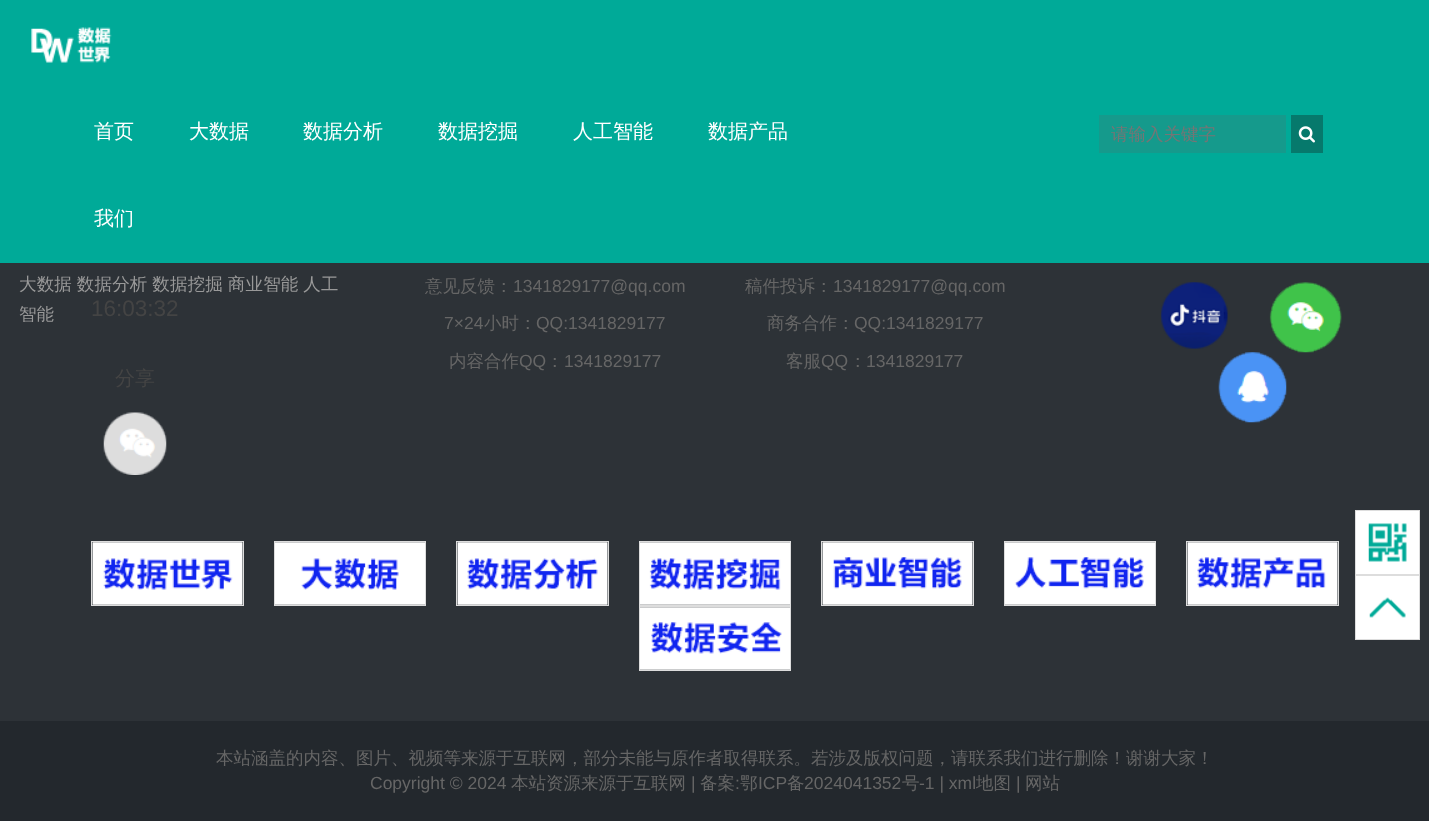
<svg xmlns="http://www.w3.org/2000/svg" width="1429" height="821">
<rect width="100%" height="100%" fill="#2d3237"/>
<rect width="1429" height="263" fill="#00aa98"/>
<image x="31" y="27" width="81" height="36" href="media/1.png"/>
<text x="94" y="138" style="font-family:WenQuanYi Zen Hei;font-size:20px;font-weight:500;fill:#fff">首页</text>
<text x="189" y="138" style="font-family:WenQuanYi Zen Hei;font-size:20px;font-weight:500;fill:#fff">大数据</text>
<text x="303" y="138" style="font-family:WenQuanYi Zen Hei;font-size:20px;font-weight:500;fill:#fff">数据分析</text>
<text x="438" y="138" style="font-family:WenQuanYi Zen Hei;font-size:20px;font-weight:500;fill:#fff">数据挖掘</text>
<text x="573" y="138" style="font-family:WenQuanYi Zen Hei;font-size:20px;font-weight:500;fill:#fff">人工智能</text>
<text x="708" y="138" style="font-family:WenQuanYi Zen Hei;font-size:20px;font-weight:500;fill:#fff">数据产品</text>
<text x="94" y="225" style="font-family:WenQuanYi Zen Hei;font-size:20px;font-weight:500;fill:#fff">我们</text>
<rect x="1099" y="115" width="187" height="38" fill="#159a8c"/>
<text x="1111" y="140" style="font-family:WenQuanYi Zen Hei;font-size:17.5px;font-weight:500;fill:#757575">请输入关键字</text>
<rect x="1291" y="115" width="32" height="38" fill="#06796c"/>
<image x="1298" y="126" width="17" height="17" href="media/2.png"/>
<text x="19" y="290" word-spacing="-0.5" style="font-family:WenQuanYi Zen Hei;font-size:17.5px;font-weight:500;letter-spacing:0.15px;fill:#999">大数据 数据分析 数据挖掘 商业智能 人工</text>
<text x="19" y="320" style="font-family:WenQuanYi Zen Hei;font-size:17.5px;font-weight:500;fill:#999">智能</text>
<text x="425" y="292" style="font-family:WenQuanYi Zen Hei;font-size:17.5px;font-weight:500;fill:#666">意见反馈：</text>
<text x="513" y="292" style="font-family:Liberation Sans;font-size:17.5px;fill:#666">1341829177@qq.com</text>
<text x="745" y="292" style="font-family:WenQuanYi Zen Hei;font-size:17.5px;font-weight:500;fill:#666">稿件投诉：</text>
<text x="833" y="292" style="font-family:Liberation Sans;font-size:17.5px;fill:#666">1341829177@qq.com</text>
<text x="444" y="329" style="font-family:Liberation Sans;font-size:17.5px;fill:#666">7×24</text>
<text x="484" y="329" style="font-family:WenQuanYi Zen Hei;font-size:17.5px;font-weight:500;fill:#666">小时：</text>
<text x="536" y="329" style="font-family:Liberation Sans;font-size:17.5px;fill:#666">QQ:1341829177</text>
<text x="767" y="329" style="font-family:WenQuanYi Zen Hei;font-size:17.5px;font-weight:500;fill:#666">商务合作：</text>
<text x="854" y="329" style="font-family:Liberation Sans;font-size:17.5px;fill:#666">QQ:1341829177</text>
<text x="449" y="367" style="font-family:WenQuanYi Zen Hei;font-size:17.5px;font-weight:500;fill:#666">内容合作</text>
<text x="519" y="367" style="font-family:Liberation Sans;font-size:17.5px;fill:#666">QQ</text>
<text x="546" y="367" style="font-family:WenQuanYi Zen Hei;font-size:17.5px;font-weight:500;fill:#666">：</text>
<text x="564" y="367" style="font-family:Liberation Sans;font-size:17.5px;fill:#666">1341829177</text>
<text x="786" y="367" style="font-family:WenQuanYi Zen Hei;font-size:17.5px;font-weight:500;fill:#666">客服</text>
<text x="821" y="367" style="font-family:Liberation Sans;font-size:17.5px;fill:#666">QQ</text>
<text x="849" y="367" style="font-family:WenQuanYi Zen Hei;font-size:17.5px;font-weight:500;fill:#666">：</text>
<text x="866" y="367" style="font-family:Liberation Sans;font-size:17.5px;fill:#666">1341829177</text>
<image x="1161" y="282" width="67" height="67" href="media/3.png"/>
<image x="1269" y="282" width="73" height="71" href="media/4.png"/>
<image x="1218" y="352" width="69" height="71" href="media/5.png"/>
<rect x="91.5" y="541.5" width="152" height="64" fill="none" stroke="#ddd"/>
<rect x="274.5" y="541.5" width="151" height="64" fill="none" stroke="#ddd"/>
<rect x="456.5" y="541.5" width="152" height="64" fill="none" stroke="#ddd"/>
<rect x="639.5" y="541.5" width="151" height="64" fill="none" stroke="#ddd"/>
<rect x="821.5" y="541.5" width="152" height="64" fill="none" stroke="#ddd"/>
<rect x="1004.5" y="541.5" width="151" height="64" fill="none" stroke="#ddd"/>
<rect x="1186.5" y="541.5" width="152" height="64" fill="none" stroke="#ddd"/>
<image x="92" y="542" width="151" height="63" href="media/6.png"/>
<image x="275" y="542" width="150" height="63" href="media/7.png"/>
<image x="457" y="542" width="151" height="63" href="media/8.png"/>
<image x="640" y="542" width="150" height="63" href="media/9.png"/>
<image x="822" y="542" width="151" height="63" href="media/10.png"/>
<image x="1005" y="542" width="150" height="63" href="media/11.png"/>
<image x="1187" y="542" width="151" height="63" href="media/12.png"/>
<rect x="639.5" y="606.5" width="151" height="64" fill="none" stroke="#ddd"/>
<image x="640" y="607" width="150" height="63" href="media/13.png"/>
<rect y="721" width="1429" height="100" fill="#23282d"/>
<text x="216" y="764" style="font-family:WenQuanYi Zen Hei;font-size:17.5px;font-weight:500;fill:#666">本站涵盖的内容、图片、视频等来源于互联网，部分未能与原作者取得联系。若涉及版权问题，请联系我们进行删除！谢谢大家！</text>
<text x="370" y="789" style="font-family:Liberation Sans;font-size:17.5px;fill:#666">Copyright © 2024</text>
<text x="511" y="789" style="font-family:WenQuanYi Zen Hei;font-size:17.5px;font-weight:500;fill:#666">本站资源来源于互联网</text>
<text x="691" y="789" style="font-family:Liberation Sans;font-size:17.5px;fill:#666">|</text>
<text x="700" y="789" style="font-family:WenQuanYi Zen Hei;font-size:17.5px;font-weight:500;fill:#666">备案</text>
<text x="735" y="789" style="font-family:Liberation Sans;font-size:17.5px;fill:#666">:</text>
<text x="740" y="789" style="font-family:WenQuanYi Zen Hei;font-size:17.5px;font-weight:500;fill:#666">鄂</text>
<text x="758" y="789" style="font-family:Liberation Sans;font-size:17.5px;fill:#666">ICP</text>
<text x="787" y="789" style="font-family:WenQuanYi Zen Hei;font-size:17.5px;font-weight:500;fill:#666">备</text>
<text x="804" y="789" style="font-family:Liberation Sans;font-size:17.5px;fill:#666">2024041352</text>
<text x="902" y="789" style="font-family:WenQuanYi Zen Hei;font-size:17.5px;font-weight:500;fill:#666">号</text>
<text x="919" y="789" style="font-family:Liberation Sans;font-size:17.5px;fill:#666">-1 | xml</text>
<text x="976" y="789" style="font-family:WenQuanYi Zen Hei;font-size:17.5px;font-weight:500;fill:#666">地图</text>
<text x="1016" y="789" style="font-family:Liberation Sans;font-size:17.5px;fill:#666">|</text>
<text x="1025" y="789" style="font-family:WenQuanYi Zen Hei;font-size:17.5px;font-weight:500;fill:#666">网站</text>
<text x="91" y="316" style="font-family:Liberation Sans;font-size:22.5px;fill:#444">16:03:32</text>
<text x="115" y="385" style="font-family:WenQuanYi Zen Hei;font-size:20px;font-weight:500;fill:#444">分享</text>
<image x="103" y="412" width="64" height="63" href="media/14.png"/>
<rect x="1356" y="511" width="63" height="128" fill="#fff"/>
<rect x="1355.5" y="510.5" width="64" height="64" fill="none" stroke="#ddd"/>
<image x="1368" y="523" width="39" height="39" href="media/15.png"/>
<rect x="1355.5" y="575.5" width="64" height="64" fill="none" stroke="#ddd"/>
<image x="1369" y="597" width="37" height="21" href="media/16.png"/>
</svg>
